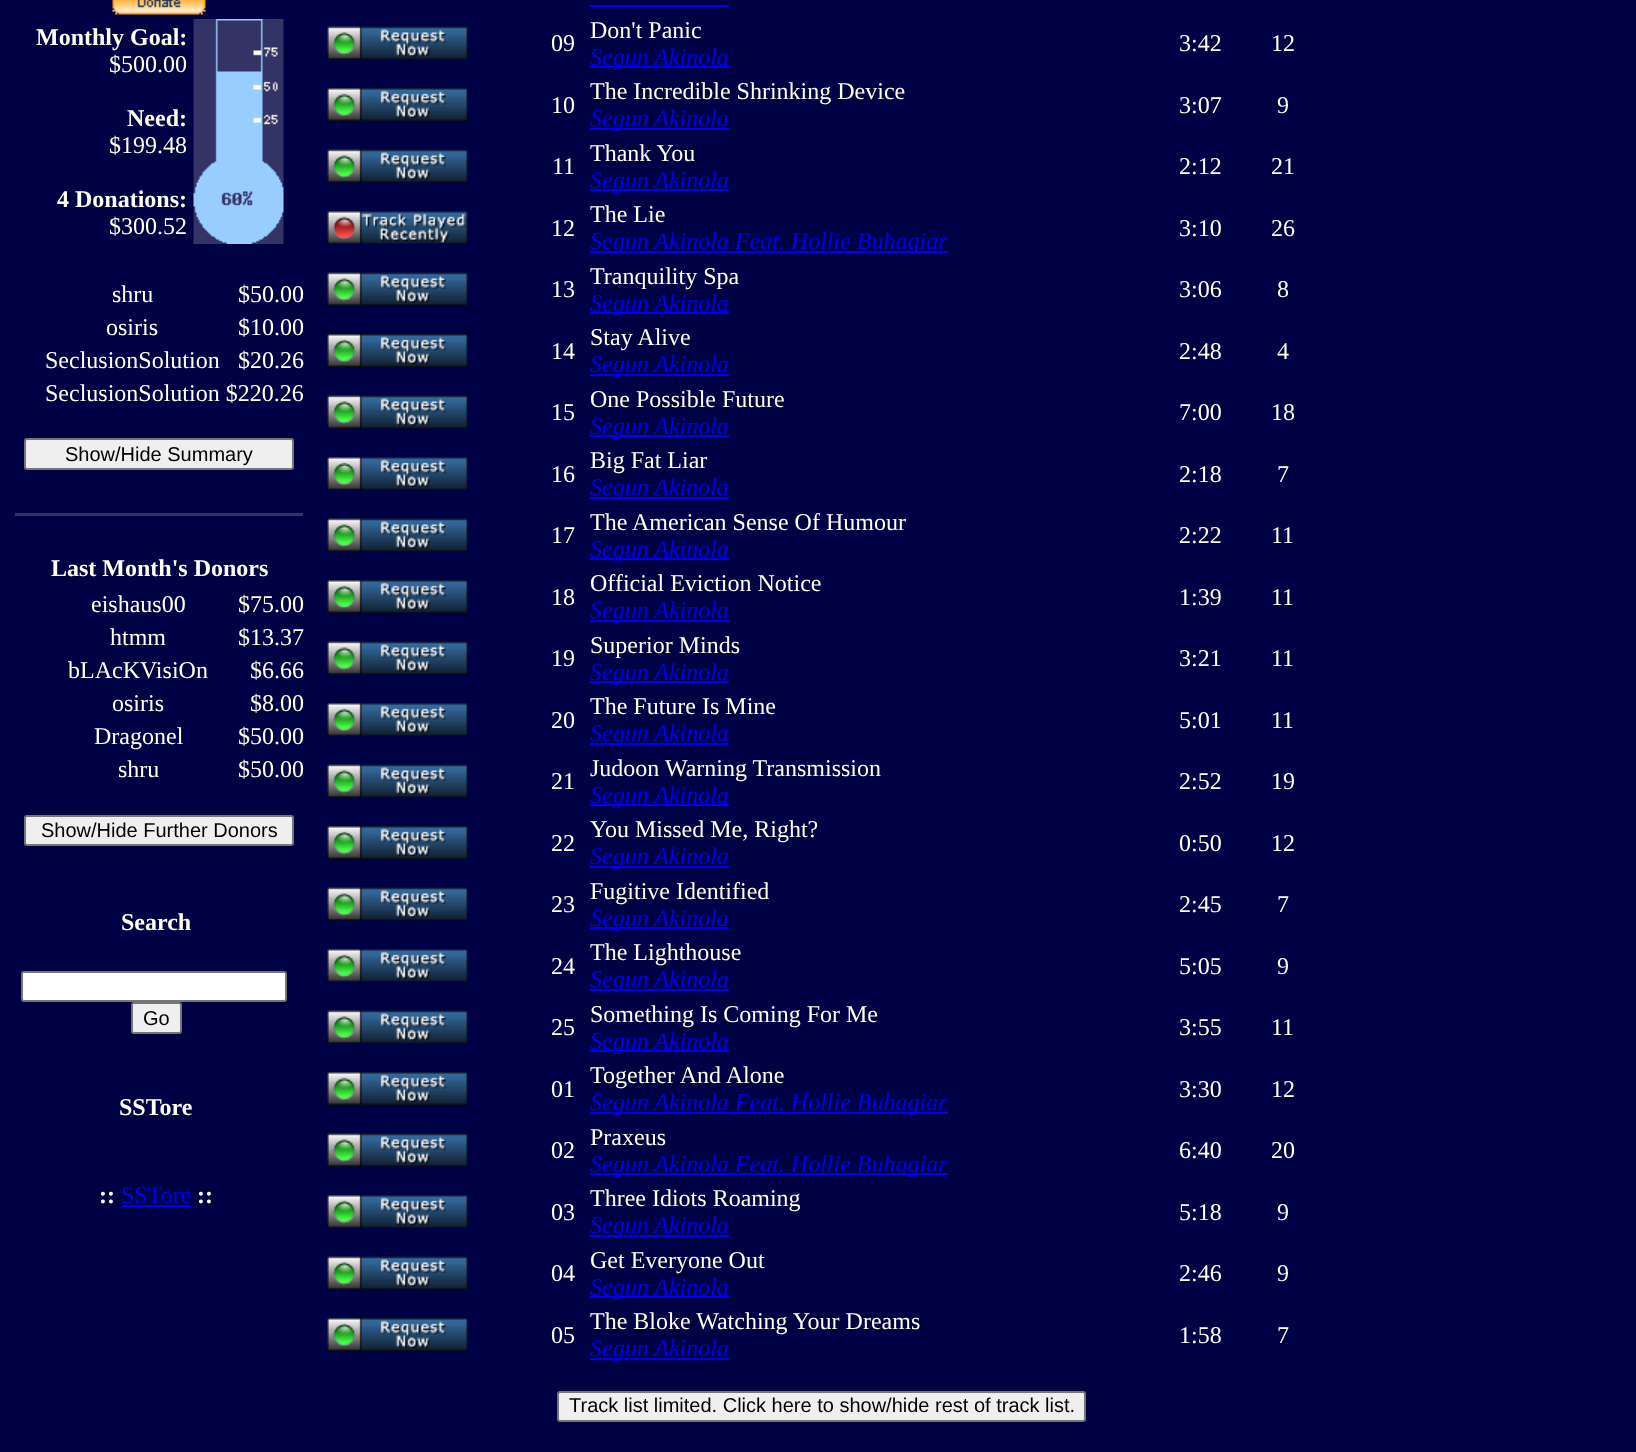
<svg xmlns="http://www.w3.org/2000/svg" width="1636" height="1452">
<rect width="100%" height="100%" fill="#004"/>
<image x="112" y="0" width="94" height="15" href="media/1.png"/>
<text x="36" y="45" style="font-family:Liberation Serif;font-size:24px;font-weight:bold;fill:#ffe">Monthly Goal:</text>
<text x="109" y="72" style="font-family:Liberation Serif;font-size:24px;fill:#ffe">$500.00</text>
<text x="127" y="126" style="font-family:Liberation Serif;font-size:24px;font-weight:bold;fill:#ffe">Need:</text>
<text x="109" y="153" style="font-family:Liberation Serif;font-size:24px;fill:#ffe">$199.48</text>
<text x="57" y="207" style="font-family:Liberation Serif;font-size:24px;font-weight:bold;fill:#ffe">4 Donations:</text>
<text x="109" y="234" style="font-family:Liberation Serif;font-size:24px;fill:#ffe">$300.52</text>
<image x="193" y="19" width="91" height="225" href="media/2.png"/>
<text x="112" y="302" style="font-family:Liberation Serif;font-size:24px;fill:#ffe">shru</text>
<text x="238" y="302" style="font-family:Liberation Serif;font-size:24px;fill:#ffe">$50.00</text>
<text x="106" y="335" style="font-family:Liberation Serif;font-size:24px;fill:#ffe">osiris</text>
<text x="238" y="335" style="font-family:Liberation Serif;font-size:24px;fill:#ffe">$10.00</text>
<text x="45" y="368" style="font-family:Liberation Serif;font-size:24px;fill:#ffe">SeclusionSolution</text>
<text x="238" y="368" style="font-family:Liberation Serif;font-size:24px;fill:#ffe">$20.26</text>
<text x="45" y="401" style="font-family:Liberation Serif;font-size:24px;fill:#ffe">SeclusionSolution $220.26</text>
<rect x="25" y="439" width="268" height="30" rx="2" fill="#efefef" stroke="#767676" stroke-width="2"/>
<text x="65" y="461" style="font-family:Liberation Sans;font-size:20px;fill:#000">Show/Hide Summary</text>
<rect x="15" y="513" width="288" height="3" fill="#336"/>
<text x="51" y="576" style="font-family:Liberation Serif;font-size:24px;font-weight:bold;fill:#ffe">Last Month's Donors</text>
<text x="91" y="612" style="font-family:Liberation Serif;font-size:24px;fill:#ffe">eishaus00</text>
<text x="238" y="612" style="font-family:Liberation Serif;font-size:24px;fill:#ffe">$75.00</text>
<text x="110" y="645" style="font-family:Liberation Serif;font-size:24px;fill:#ffe">htmm</text>
<text x="238" y="645" style="font-family:Liberation Serif;font-size:24px;fill:#ffe">$13.37</text>
<text x="68" y="678" style="font-family:Liberation Serif;font-size:24px;fill:#ffe">bLAcKVisiOn</text>
<text x="250" y="678" style="font-family:Liberation Serif;font-size:24px;fill:#ffe">$6.66</text>
<text x="112" y="711" style="font-family:Liberation Serif;font-size:24px;fill:#ffe">osiris</text>
<text x="250" y="711" style="font-family:Liberation Serif;font-size:24px;fill:#ffe">$8.00</text>
<text x="94" y="744" style="font-family:Liberation Serif;font-size:24px;fill:#ffe">Dragonel</text>
<text x="238" y="744" style="font-family:Liberation Serif;font-size:24px;fill:#ffe">$50.00</text>
<text x="118" y="777" style="font-family:Liberation Serif;font-size:24px;fill:#ffe">shru</text>
<text x="238" y="777" style="font-family:Liberation Serif;font-size:24px;fill:#ffe">$50.00</text>
<rect x="25" y="816" width="268" height="29" rx="2" fill="#efefef" stroke="#767676" stroke-width="2"/>
<text x="41" y="837" style="font-family:Liberation Sans;font-size:20px;fill:#000">Show/Hide Further Donors</text>
<text x="121" y="930" style="font-family:Liberation Serif;font-size:24px;font-weight:bold;fill:#ffe">Search</text>
<rect x="22" y="972" width="264" height="29" rx="2" fill="#fff" stroke="#767676" stroke-width="2"/>
<rect x="132" y="1003" width="49" height="30" rx="2" fill="#efefef" stroke="#767676" stroke-width="2"/>
<text x="143" y="1025" style="font-family:Liberation Sans;font-size:20px;fill:#000">Go</text>
<text x="119" y="1115" style="font-family:Liberation Serif;font-size:24px;font-weight:bold;fill:#ffe">SSTore</text>
<text x="99" y="1203" style="font-family:Liberation Serif;font-size:24px;font-weight:bold;fill:#ffe">::</text>
<text x="121" y="1203" style="font-family:Liberation Serif;font-size:24px;fill:#00e">SSTore</text>
<rect x="122" y="1205" width="69" height="2" fill="#00e"/>
<text x="197" y="1203" style="font-family:Liberation Serif;font-size:24px;font-weight:bold;fill:#ffe">::</text>
<rect x="590" y="5" width="139" height="2" fill="#00e"/>
<image x="327" y="26" width="141" height="34" href="media/3.png"/>
<text x="551" y="51" style="font-family:Liberation Serif;font-size:24px;fill:#ffe">09</text>
<text x="590" y="38" style="font-family:Liberation Serif;font-size:24px;fill:#ffe">Don't Panic</text>
<rect x="590" y="66" width="139" height="2" fill="#00e"/>
<text x="590" y="65" style="font-family:Liberation Serif;font-size:24px;font-style:italic;fill:#00e">Segun Akinola</text>
<text x="1179" y="51" style="font-family:Liberation Serif;font-size:24px;fill:#ffe">3:42</text>
<text x="1271" y="51" style="font-family:Liberation Serif;font-size:24px;fill:#ffe">12</text>
<image x="327" y="88" width="141" height="33" href="media/4.png"/>
<text x="551" y="113" style="font-family:Liberation Serif;font-size:24px;fill:#ffe">10</text>
<text x="590" y="99" style="font-family:Liberation Serif;font-size:24px;fill:#ffe">The Incredible Shrinking Device</text>
<rect x="590" y="128" width="139" height="2" fill="#00e"/>
<text x="590" y="126" style="font-family:Liberation Serif;font-size:24px;font-style:italic;fill:#00e">Segun Akinola</text>
<text x="1179" y="113" style="font-family:Liberation Serif;font-size:24px;fill:#ffe">3:07</text>
<text x="1277" y="113" style="font-family:Liberation Serif;font-size:24px;fill:#ffe">9</text>
<image x="327" y="149" width="141" height="34" href="media/3.png"/>
<text x="552" y="174" style="font-family:Liberation Serif;font-size:24px;fill:#ffe">11</text>
<text x="590" y="161" style="font-family:Liberation Serif;font-size:24px;fill:#ffe">Thank You</text>
<rect x="590" y="189" width="139" height="2" fill="#00e"/>
<text x="590" y="188" style="font-family:Liberation Serif;font-size:24px;font-style:italic;fill:#00e">Segun Akinola</text>
<text x="1179" y="174" style="font-family:Liberation Serif;font-size:24px;fill:#ffe">2:12</text>
<text x="1271" y="174" style="font-family:Liberation Serif;font-size:24px;fill:#ffe">21</text>
<image x="327" y="211" width="141" height="33" href="media/5.png"/>
<text x="551" y="236" style="font-family:Liberation Serif;font-size:24px;fill:#ffe">12</text>
<text x="590" y="222" style="font-family:Liberation Serif;font-size:24px;fill:#ffe">The Lie</text>
<rect x="590" y="251" width="358" height="2" fill="#00e"/>
<text x="590" y="249" style="font-family:Liberation Serif;font-size:24px;font-style:italic;fill:#00e">Segun Akinola Feat. Hollie Buhagiar</text>
<text x="1179" y="236" style="font-family:Liberation Serif;font-size:24px;fill:#ffe">3:10</text>
<text x="1271" y="236" style="font-family:Liberation Serif;font-size:24px;fill:#ffe">26</text>
<image x="327" y="272" width="141" height="34" href="media/3.png"/>
<text x="551" y="297" style="font-family:Liberation Serif;font-size:24px;fill:#ffe">13</text>
<text x="590" y="284" style="font-family:Liberation Serif;font-size:24px;fill:#ffe">Tranquility Spa</text>
<rect x="590" y="312" width="139" height="2" fill="#00e"/>
<text x="590" y="311" style="font-family:Liberation Serif;font-size:24px;font-style:italic;fill:#00e">Segun Akinola</text>
<text x="1179" y="297" style="font-family:Liberation Serif;font-size:24px;fill:#ffe">3:06</text>
<text x="1277" y="297" style="font-family:Liberation Serif;font-size:24px;fill:#ffe">8</text>
<image x="327" y="334" width="141" height="33" href="media/4.png"/>
<text x="551" y="359" style="font-family:Liberation Serif;font-size:24px;fill:#ffe">14</text>
<text x="590" y="345" style="font-family:Liberation Serif;font-size:24px;fill:#ffe">Stay Alive</text>
<rect x="590" y="374" width="139" height="2" fill="#00e"/>
<text x="590" y="372" style="font-family:Liberation Serif;font-size:24px;font-style:italic;fill:#00e">Segun Akinola</text>
<text x="1179" y="359" style="font-family:Liberation Serif;font-size:24px;fill:#ffe">2:48</text>
<text x="1277" y="359" style="font-family:Liberation Serif;font-size:24px;fill:#ffe">4</text>
<image x="327" y="395" width="141" height="34" href="media/3.png"/>
<text x="551" y="420" style="font-family:Liberation Serif;font-size:24px;fill:#ffe">15</text>
<text x="590" y="407" style="font-family:Liberation Serif;font-size:24px;fill:#ffe">One Possible Future</text>
<rect x="590" y="435" width="139" height="2" fill="#00e"/>
<text x="590" y="434" style="font-family:Liberation Serif;font-size:24px;font-style:italic;fill:#00e">Segun Akinola</text>
<text x="1179" y="420" style="font-family:Liberation Serif;font-size:24px;fill:#ffe">7:00</text>
<text x="1271" y="420" style="font-family:Liberation Serif;font-size:24px;fill:#ffe">18</text>
<image x="327" y="457" width="141" height="33" href="media/4.png"/>
<text x="551" y="482" style="font-family:Liberation Serif;font-size:24px;fill:#ffe">16</text>
<text x="590" y="468" style="font-family:Liberation Serif;font-size:24px;fill:#ffe">Big Fat Liar</text>
<rect x="590" y="497" width="139" height="2" fill="#00e"/>
<text x="590" y="495" style="font-family:Liberation Serif;font-size:24px;font-style:italic;fill:#00e">Segun Akinola</text>
<text x="1179" y="482" style="font-family:Liberation Serif;font-size:24px;fill:#ffe">2:18</text>
<text x="1277" y="482" style="font-family:Liberation Serif;font-size:24px;fill:#ffe">7</text>
<image x="327" y="518" width="141" height="34" href="media/3.png"/>
<text x="551" y="543" style="font-family:Liberation Serif;font-size:24px;fill:#ffe">17</text>
<text x="590" y="530" style="font-family:Liberation Serif;font-size:24px;fill:#ffe">The American Sense Of Humour</text>
<rect x="590" y="558" width="139" height="2" fill="#00e"/>
<text x="590" y="557" style="font-family:Liberation Serif;font-size:24px;font-style:italic;fill:#00e">Segun Akinola</text>
<text x="1179" y="543" style="font-family:Liberation Serif;font-size:24px;fill:#ffe">2:22</text>
<text x="1271" y="543" style="font-family:Liberation Serif;font-size:24px;fill:#ffe">11</text>
<image x="327" y="580" width="141" height="33" href="media/4.png"/>
<text x="551" y="605" style="font-family:Liberation Serif;font-size:24px;fill:#ffe">18</text>
<text x="590" y="591" style="font-family:Liberation Serif;font-size:24px;fill:#ffe">Official Eviction Notice</text>
<rect x="590" y="620" width="139" height="2" fill="#00e"/>
<text x="590" y="618" style="font-family:Liberation Serif;font-size:24px;font-style:italic;fill:#00e">Segun Akinola</text>
<text x="1179" y="605" style="font-family:Liberation Serif;font-size:24px;fill:#ffe">1:39</text>
<text x="1271" y="605" style="font-family:Liberation Serif;font-size:24px;fill:#ffe">11</text>
<image x="327" y="641" width="141" height="34" href="media/3.png"/>
<text x="551" y="666" style="font-family:Liberation Serif;font-size:24px;fill:#ffe">19</text>
<text x="590" y="653" style="font-family:Liberation Serif;font-size:24px;fill:#ffe">Superior Minds</text>
<rect x="590" y="681" width="139" height="2" fill="#00e"/>
<text x="590" y="680" style="font-family:Liberation Serif;font-size:24px;font-style:italic;fill:#00e">Segun Akinola</text>
<text x="1179" y="666" style="font-family:Liberation Serif;font-size:24px;fill:#ffe">3:21</text>
<text x="1271" y="666" style="font-family:Liberation Serif;font-size:24px;fill:#ffe">11</text>
<image x="327" y="703" width="141" height="33" href="media/4.png"/>
<text x="551" y="728" style="font-family:Liberation Serif;font-size:24px;fill:#ffe">20</text>
<text x="590" y="714" style="font-family:Liberation Serif;font-size:24px;fill:#ffe">The Future Is Mine</text>
<rect x="590" y="743" width="139" height="2" fill="#00e"/>
<text x="590" y="741" style="font-family:Liberation Serif;font-size:24px;font-style:italic;fill:#00e">Segun Akinola</text>
<text x="1179" y="728" style="font-family:Liberation Serif;font-size:24px;fill:#ffe">5:01</text>
<text x="1271" y="728" style="font-family:Liberation Serif;font-size:24px;fill:#ffe">11</text>
<image x="327" y="764" width="141" height="34" href="media/3.png"/>
<text x="551" y="789" style="font-family:Liberation Serif;font-size:24px;fill:#ffe">21</text>
<text x="590" y="776" style="font-family:Liberation Serif;font-size:24px;fill:#ffe">Judoon Warning Transmission</text>
<rect x="590" y="804" width="139" height="2" fill="#00e"/>
<text x="590" y="803" style="font-family:Liberation Serif;font-size:24px;font-style:italic;fill:#00e">Segun Akinola</text>
<text x="1179" y="789" style="font-family:Liberation Serif;font-size:24px;fill:#ffe">2:52</text>
<text x="1271" y="789" style="font-family:Liberation Serif;font-size:24px;fill:#ffe">19</text>
<image x="327" y="826" width="141" height="33" href="media/4.png"/>
<text x="551" y="851" style="font-family:Liberation Serif;font-size:24px;fill:#ffe">22</text>
<text x="590" y="837" style="font-family:Liberation Serif;font-size:24px;fill:#ffe">You Missed Me, Right?</text>
<rect x="590" y="866" width="139" height="2" fill="#00e"/>
<text x="590" y="864" style="font-family:Liberation Serif;font-size:24px;font-style:italic;fill:#00e">Segun Akinola</text>
<text x="1179" y="851" style="font-family:Liberation Serif;font-size:24px;fill:#ffe">0:50</text>
<text x="1271" y="851" style="font-family:Liberation Serif;font-size:24px;fill:#ffe">12</text>
<image x="327" y="887" width="141" height="34" href="media/3.png"/>
<text x="551" y="912" style="font-family:Liberation Serif;font-size:24px;fill:#ffe">23</text>
<text x="590" y="899" style="font-family:Liberation Serif;font-size:24px;fill:#ffe">Fugitive Identified</text>
<rect x="590" y="927" width="139" height="2" fill="#00e"/>
<text x="590" y="926" style="font-family:Liberation Serif;font-size:24px;font-style:italic;fill:#00e">Segun Akinola</text>
<text x="1179" y="912" style="font-family:Liberation Serif;font-size:24px;fill:#ffe">2:45</text>
<text x="1277" y="912" style="font-family:Liberation Serif;font-size:24px;fill:#ffe">7</text>
<image x="327" y="949" width="141" height="33" href="media/4.png"/>
<text x="551" y="974" style="font-family:Liberation Serif;font-size:24px;fill:#ffe">24</text>
<text x="590" y="960" style="font-family:Liberation Serif;font-size:24px;fill:#ffe">The Lighthouse</text>
<rect x="590" y="989" width="139" height="2" fill="#00e"/>
<text x="590" y="987" style="font-family:Liberation Serif;font-size:24px;font-style:italic;fill:#00e">Segun Akinola</text>
<text x="1179" y="974" style="font-family:Liberation Serif;font-size:24px;fill:#ffe">5:05</text>
<text x="1277" y="974" style="font-family:Liberation Serif;font-size:24px;fill:#ffe">9</text>
<image x="327" y="1010" width="141" height="34" href="media/3.png"/>
<text x="551" y="1035" style="font-family:Liberation Serif;font-size:24px;fill:#ffe">25</text>
<text x="590" y="1022" style="font-family:Liberation Serif;font-size:24px;fill:#ffe">Something Is Coming For Me</text>
<rect x="590" y="1050" width="139" height="2" fill="#00e"/>
<text x="590" y="1049" style="font-family:Liberation Serif;font-size:24px;font-style:italic;fill:#00e">Segun Akinola</text>
<text x="1179" y="1035" style="font-family:Liberation Serif;font-size:24px;fill:#ffe">3:55</text>
<text x="1271" y="1035" style="font-family:Liberation Serif;font-size:24px;fill:#ffe">11</text>
<image x="327" y="1072" width="141" height="33" href="media/4.png"/>
<text x="551" y="1097" style="font-family:Liberation Serif;font-size:24px;fill:#ffe">01</text>
<text x="590" y="1083" style="font-family:Liberation Serif;font-size:24px;fill:#ffe">Together And Alone</text>
<rect x="590" y="1112" width="358" height="2" fill="#00e"/>
<text x="590" y="1110" style="font-family:Liberation Serif;font-size:24px;font-style:italic;fill:#00e">Segun Akinola Feat. Hollie Buhagiar</text>
<text x="1179" y="1097" style="font-family:Liberation Serif;font-size:24px;fill:#ffe">3:30</text>
<text x="1271" y="1097" style="font-family:Liberation Serif;font-size:24px;fill:#ffe">12</text>
<image x="327" y="1133" width="141" height="34" href="media/3.png"/>
<text x="551" y="1158" style="font-family:Liberation Serif;font-size:24px;fill:#ffe">02</text>
<text x="590" y="1145" style="font-family:Liberation Serif;font-size:24px;fill:#ffe">Praxeus</text>
<rect x="590" y="1173" width="358" height="2" fill="#00e"/>
<text x="590" y="1172" style="font-family:Liberation Serif;font-size:24px;font-style:italic;fill:#00e">Segun Akinola Feat. Hollie Buhagiar</text>
<text x="1179" y="1158" style="font-family:Liberation Serif;font-size:24px;fill:#ffe">6:40</text>
<text x="1271" y="1158" style="font-family:Liberation Serif;font-size:24px;fill:#ffe">20</text>
<image x="327" y="1195" width="141" height="33" href="media/4.png"/>
<text x="551" y="1220" style="font-family:Liberation Serif;font-size:24px;fill:#ffe">03</text>
<text x="590" y="1206" style="font-family:Liberation Serif;font-size:24px;fill:#ffe">Three Idiots Roaming</text>
<rect x="590" y="1235" width="139" height="2" fill="#00e"/>
<text x="590" y="1233" style="font-family:Liberation Serif;font-size:24px;font-style:italic;fill:#00e">Segun Akinola</text>
<text x="1179" y="1220" style="font-family:Liberation Serif;font-size:24px;fill:#ffe">5:18</text>
<text x="1277" y="1220" style="font-family:Liberation Serif;font-size:24px;fill:#ffe">9</text>
<image x="327" y="1256" width="141" height="34" href="media/3.png"/>
<text x="551" y="1281" style="font-family:Liberation Serif;font-size:24px;fill:#ffe">04</text>
<text x="590" y="1268" style="font-family:Liberation Serif;font-size:24px;fill:#ffe">Get Everyone Out</text>
<rect x="590" y="1296" width="139" height="2" fill="#00e"/>
<text x="590" y="1295" style="font-family:Liberation Serif;font-size:24px;font-style:italic;fill:#00e">Segun Akinola</text>
<text x="1179" y="1281" style="font-family:Liberation Serif;font-size:24px;fill:#ffe">2:46</text>
<text x="1277" y="1281" style="font-family:Liberation Serif;font-size:24px;fill:#ffe">9</text>
<image x="327" y="1318" width="141" height="33" href="media/4.png"/>
<text x="551" y="1343" style="font-family:Liberation Serif;font-size:24px;fill:#ffe">05</text>
<text x="590" y="1329" style="font-family:Liberation Serif;font-size:24px;fill:#ffe">The Bloke Watching Your Dreams</text>
<rect x="590" y="1358" width="139" height="2" fill="#00e"/>
<text x="590" y="1356" style="font-family:Liberation Serif;font-size:24px;font-style:italic;fill:#00e">Segun Akinola</text>
<text x="1179" y="1343" style="font-family:Liberation Serif;font-size:24px;fill:#ffe">1:58</text>
<text x="1277" y="1343" style="font-family:Liberation Serif;font-size:24px;fill:#ffe">7</text>
<rect x="558" y="1392" width="527" height="29" rx="2" fill="#efefef" stroke="#767676" stroke-width="2"/>
<text x="569" y="1412" style="font-family:Liberation Sans;font-size:20px;fill:#000">Track list limited. Click here to show/hide rest of track list.</text>
</svg>
